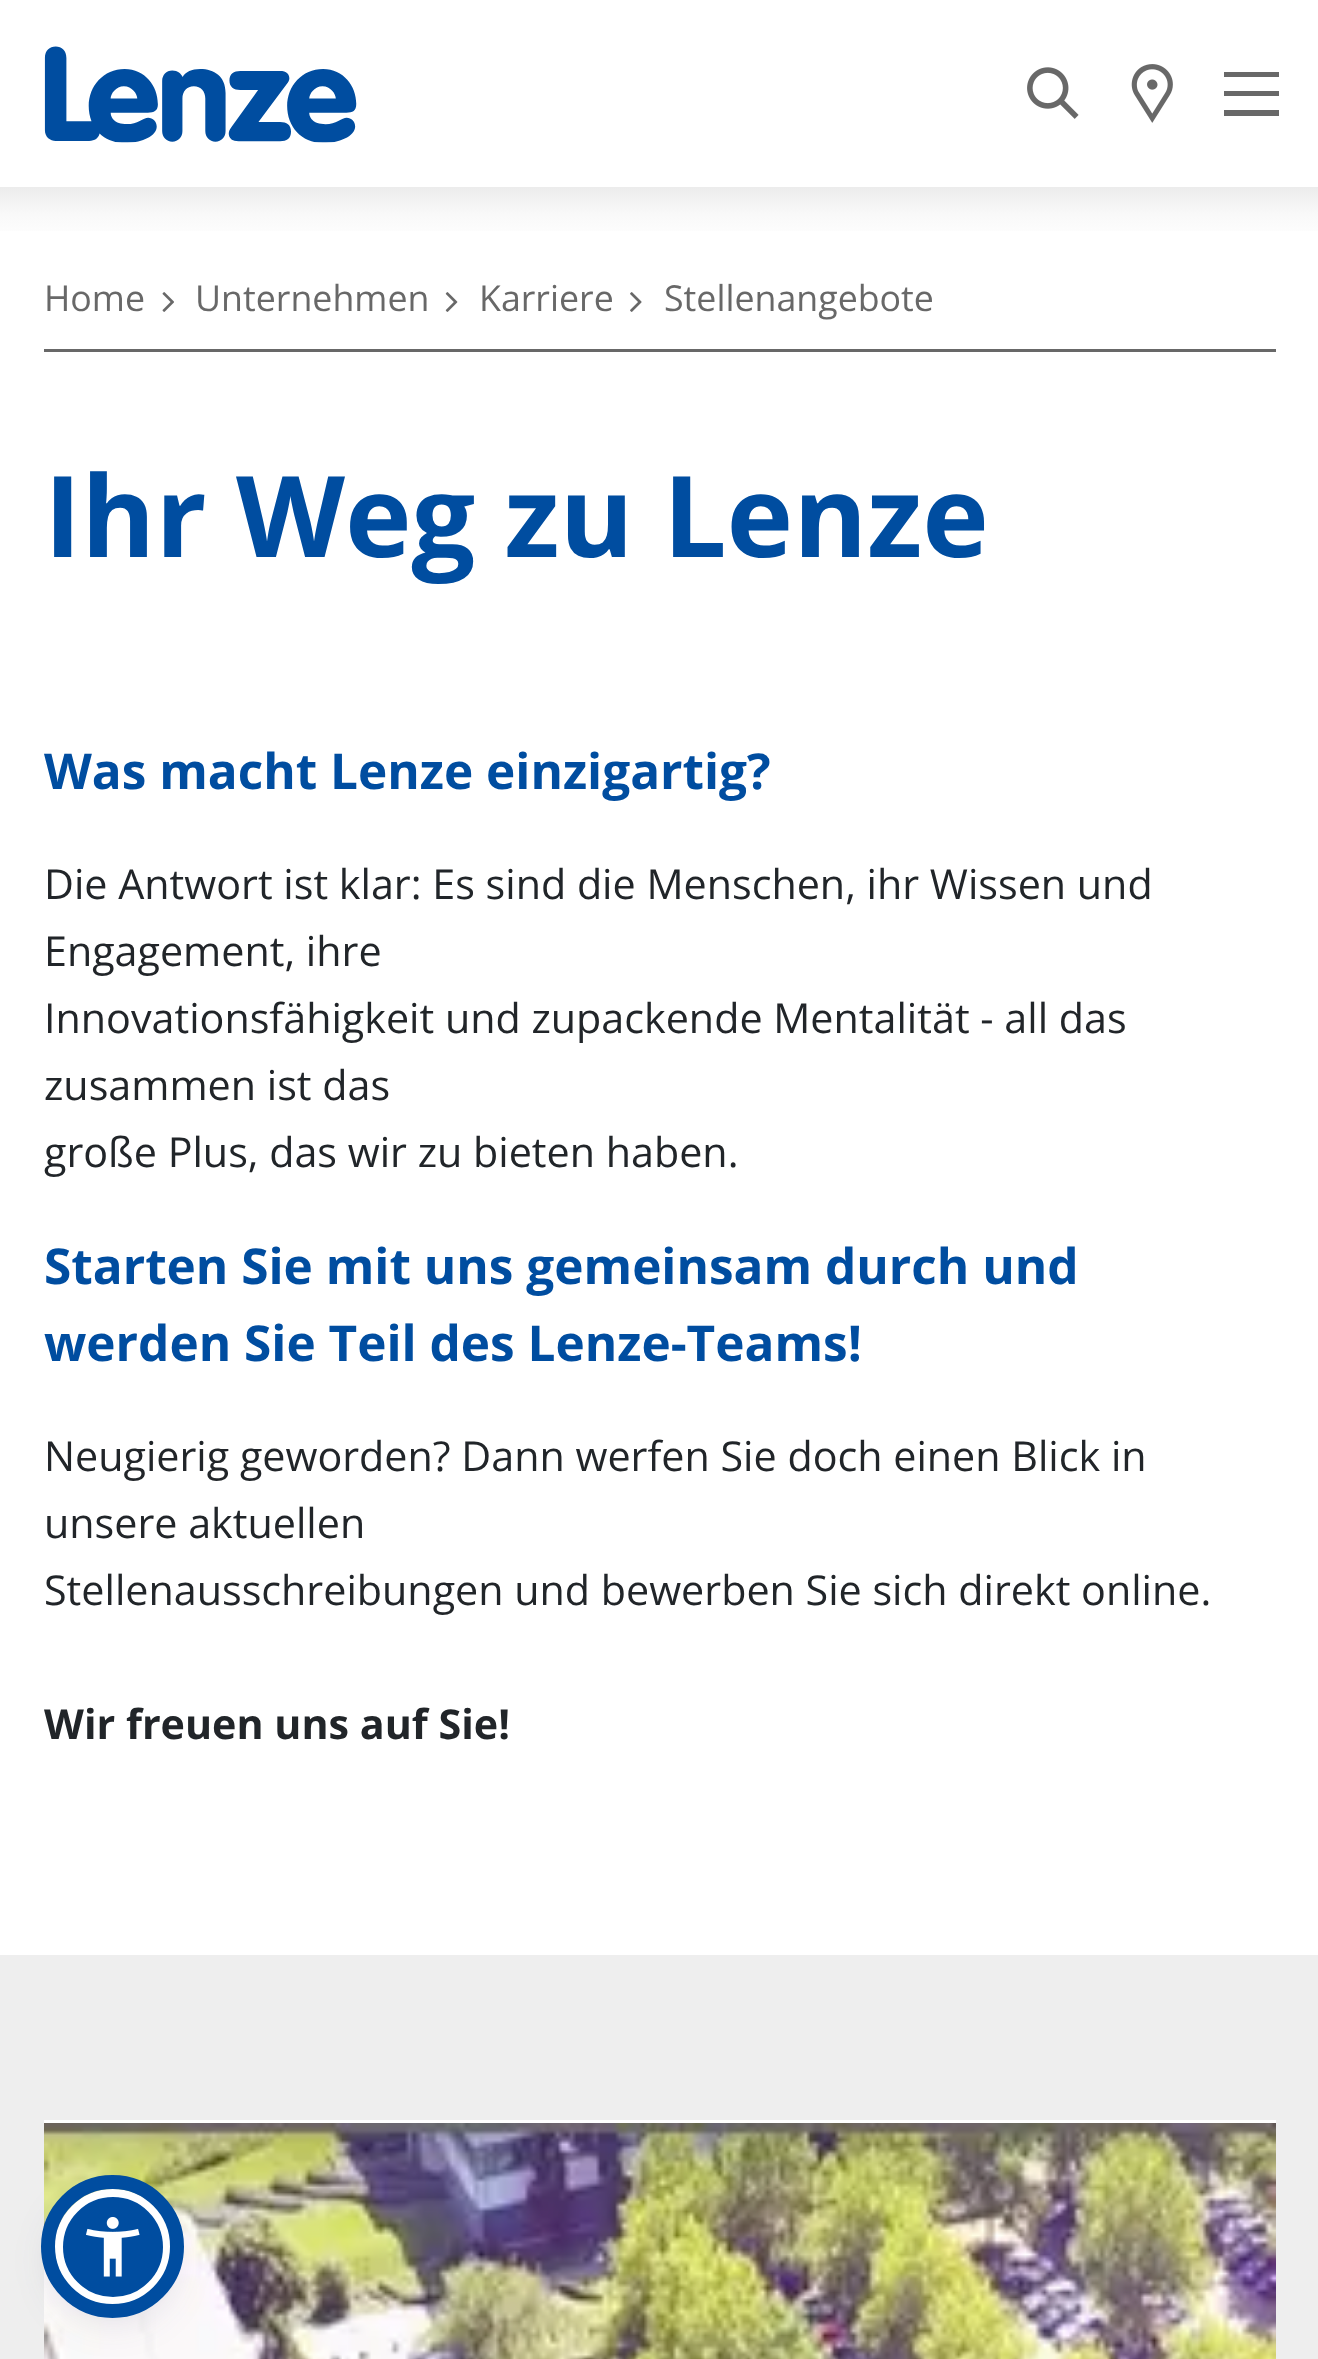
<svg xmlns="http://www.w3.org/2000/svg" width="1318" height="2359">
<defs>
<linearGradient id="g1" gradientUnits="userSpaceOnUse" x1="660" y1="187" x2="660" y2="242"><stop offset="0" stop-color="#ececec"/><stop offset="0.5" stop-color="#f9f9f9"/><stop offset="1" stop-color="#fff"/></linearGradient>
</defs>
<rect width="100%" height="100%" fill="#fff"/>
<image x="44" y="46" width="313" height="97" href="media/1.png"/>
<image x="1027" y="67" width="52" height="52" href="media/2.png"/>
<image x="1131" y="64" width="42" height="59" href="media/3.png"/>
<rect x="1224" y="72" width="55" height="5" fill="#686868"/>
<rect x="1224" y="91" width="55" height="5" fill="#686868"/>
<rect x="1224" y="110" width="55" height="6" fill="#686868"/>
<rect y="187" width="1318" height="44" fill="url(#g1)"/>
<rect x="44" y="349" width="1232" height="3" fill="#686868"/>
<text x="44" y="311" style="font-family:Open Sans;font-size:35.75px;fill:#686868">Home</text>
<image x="162" y="292" width="12" height="20" href="media/4.png"/>
<text x="195" y="311" style="font-family:Open Sans;font-size:35.75px;fill:#686868">Unternehmen</text>
<image x="445" y="292" width="13" height="20" href="media/5.png"/>
<text x="479" y="311" style="font-family:Open Sans;font-size:35.75px;fill:#686868">Karriere</text>
<image x="630" y="292" width="12" height="20" href="media/6.png"/>
<text x="664" y="311" style="font-family:Open Sans;font-size:35.75px;fill:#686868">Stellenangebote</text>
<text x="44" y="557" style="font-family:Open Sans;font-size:112.75px;font-weight:bold;fill:#004da0">Ihr Weg zu Lenze</text>
<text x="44" y="789" style="font-family:Open Sans;font-size:49.5px;font-weight:bold;fill:#004da0">Was macht Lenze einzigartig?</text>
<text x="44" y="899" style="font-family:Open Sans;font-size:41.25px;fill:#212529">Die Antwort ist klar: Es sind die Menschen, ihr Wissen und</text>
<text x="44" y="966" style="font-family:Open Sans;font-size:41.25px;fill:#212529">Engagement, ihre</text>
<text x="44" y="1033" style="font-family:Open Sans;font-size:41.25px;fill:#212529">Innovationsfähigkeit und zupackende Mentalität - all das</text>
<text x="44" y="1100" style="font-family:Open Sans;font-size:41.25px;fill:#212529">zusammen ist das</text>
<text x="44" y="1167" style="font-family:Open Sans;font-size:41.25px;fill:#212529">große Plus, das wir zu bieten haben.</text>
<text x="44" y="1284" style="font-family:Open Sans;font-size:49.5px;font-weight:bold;fill:#004da0">Starten Sie mit uns gemeinsam durch und</text>
<text x="44" y="1361" style="font-family:Open Sans;font-size:49.5px;font-weight:bold;fill:#004da0">werden Sie Teil des Lenze-Teams!</text>
<text x="44" y="1471" style="font-family:Open Sans;font-size:41.25px;fill:#212529">Neugierig geworden? Dann werfen Sie doch einen Blick in</text>
<text x="44" y="1538" style="font-family:Open Sans;font-size:41.25px;fill:#212529">unsere aktuellen</text>
<text x="44" y="1605" style="font-family:Open Sans;font-size:41.25px;fill:#212529">Stellenausschreibungen und bewerben Sie sich direkt online.</text>
<text x="44" y="1739" style="font-family:Open Sans;font-size:41.25px;font-weight:bold;fill:#212529">Wir freuen uns auf Sie!</text>
<rect y="1955" width="1318" height="404" fill="#eee"/>
<rect x="44" y="2120" width="1232" height="3" fill="#fff"/>
<image x="44" y="2123" width="1232" height="236" href="media/7.png"/>
<rect x="55" y="2195" width="116" height="115" rx="57.5" fill="#5d649433" filter="blur(5.5px)"/>
<rect x="55" y="2203" width="116" height="115" rx="57.5" fill="#252c6126" filter="blur(20.5px)"/>
<circle cx="113" cy="2247" r="54" fill="#004da0" stroke="#fff" stroke-width="8"/>
<circle cx="112.5" cy="2246.5" r="64.5" fill="none" stroke="#004da0" stroke-width="14"/>
<image x="86" y="2217" width="54" height="60" href="media/8.png"/>
</svg>
